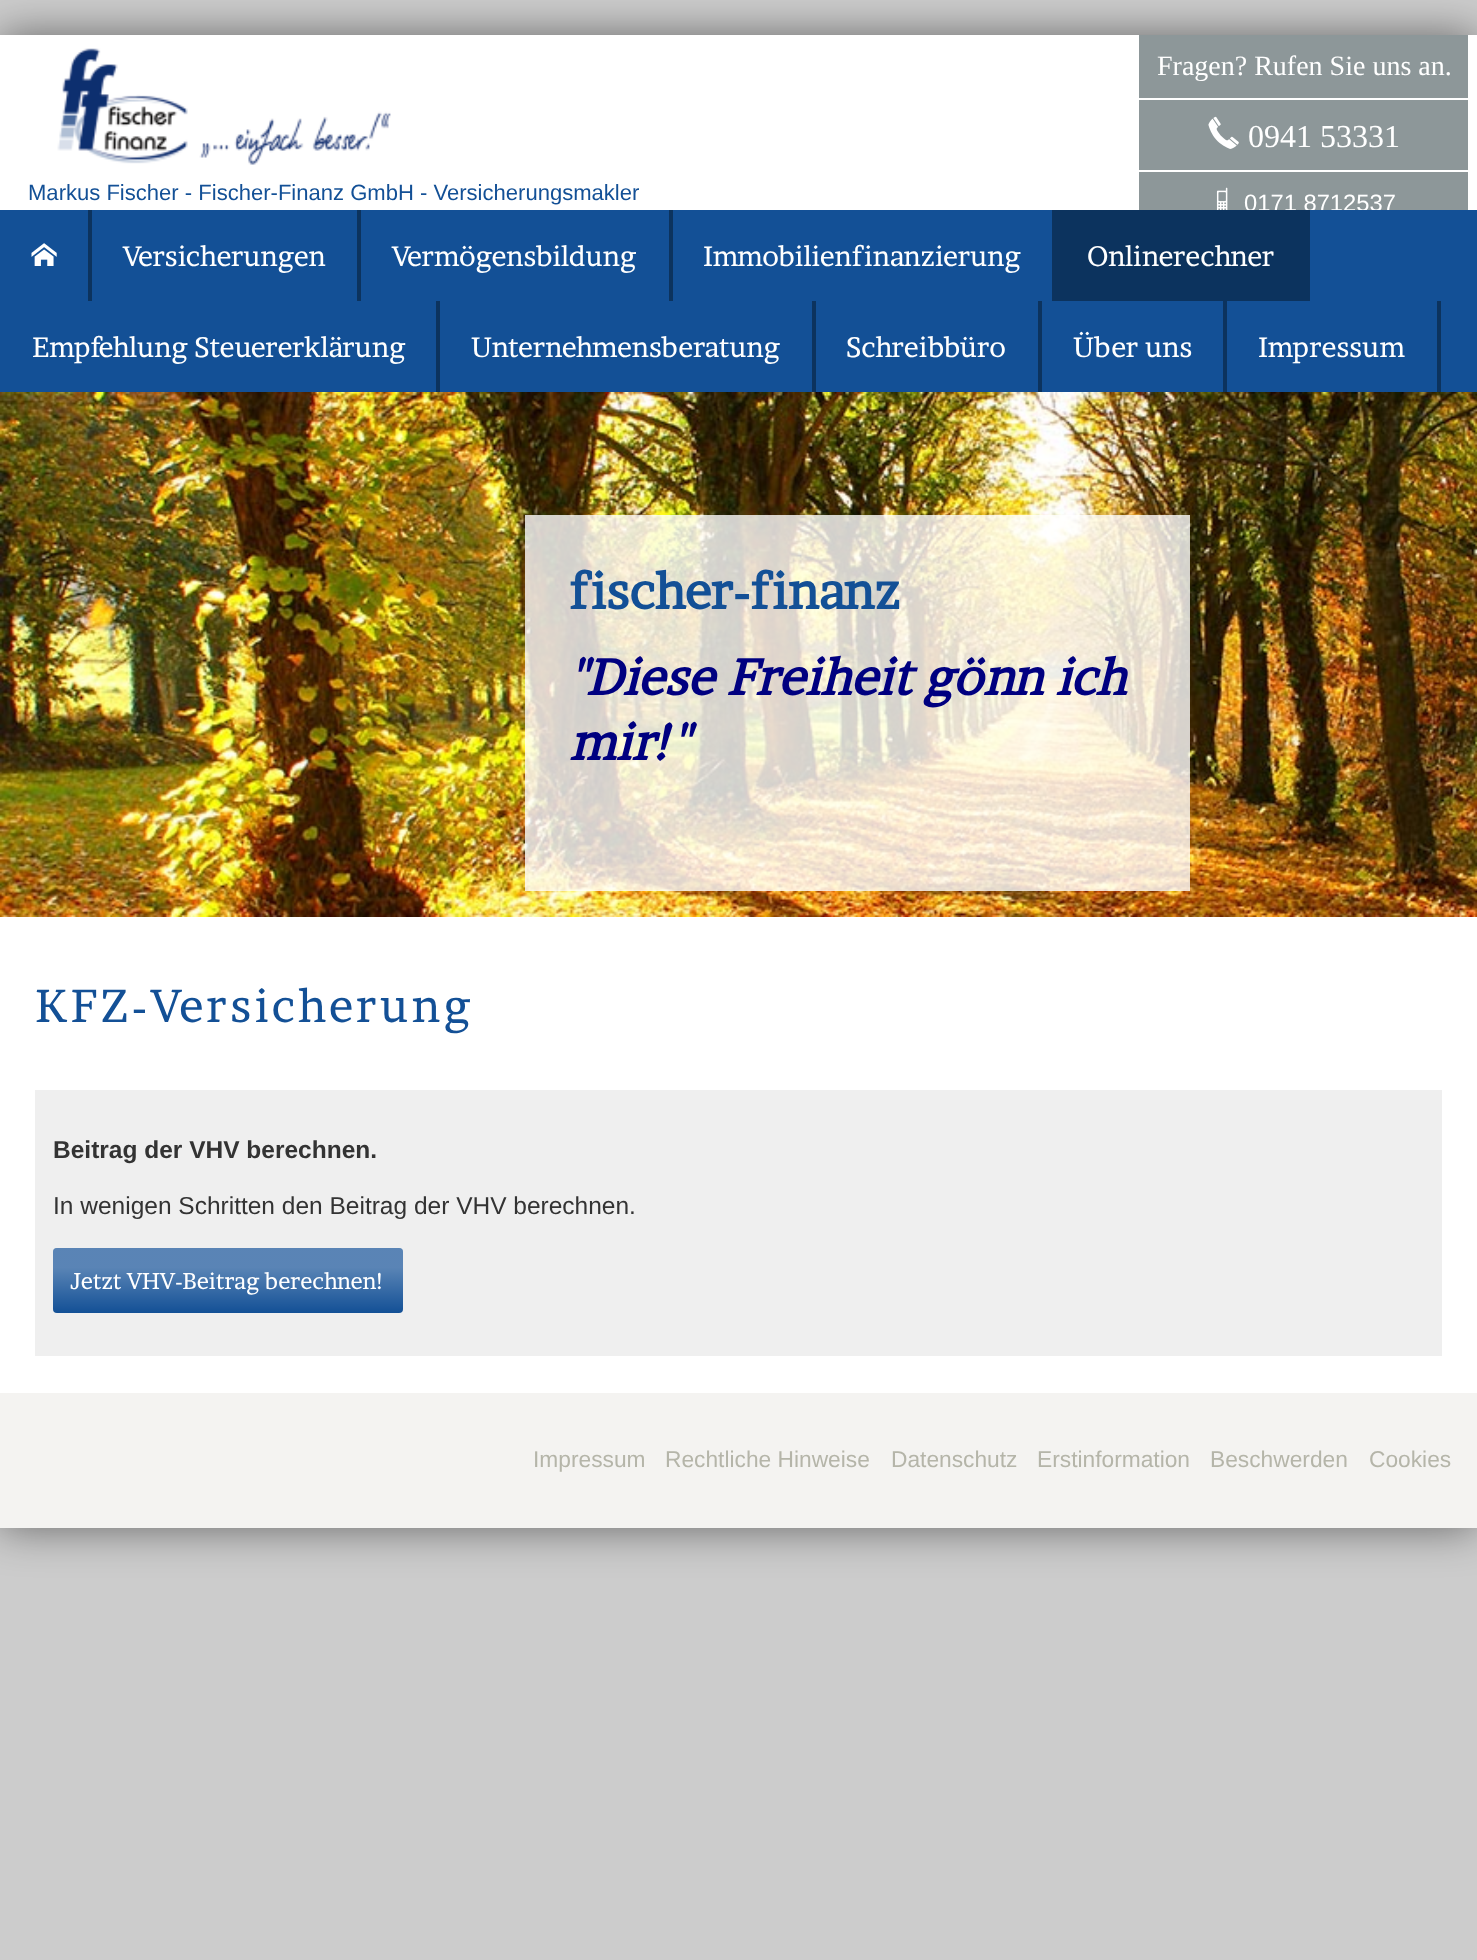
<svg xmlns="http://www.w3.org/2000/svg" width="1477" height="1960">
<defs>
<linearGradient id="g1" gradientUnits="userSpaceOnUse" x1="228" y1="1248" x2="228" y2="1313"><stop offset="0.3" stop-color="#fff" stop-opacity="0.3"/><stop offset="1" stop-color="#fff" stop-opacity="0"/></linearGradient>
</defs>
<rect width="100%" height="100%" fill="#ccc"/>
<rect y="35" width="1477" height="1493" fill="#00000080" filter="blur(22px)"/>
<rect y="35" width="1477" height="1358" fill="#fff"/>
<image x="0" y="392" width="1477" height="525" href="media/1.png"/>
<image x="57" y="48" width="334" height="117" href="media/2.png"/>
<rect x="1139" y="35" width="329" height="63" fill="#8d9799"/>
<text x="1157" y="75" style="font-family:Liberation Serif;font-size:28px;fill:#fff">Fragen? Rufen Sie uns an.</text>
<rect x="1139" y="100" width="329" height="70" fill="#8d9799"/>
<image x="1208" y="116" width="31" height="33" href="media/3.png"/>
<text x="1248" y="147" style="font-family:Liberation Serif;font-size:32px;fill:#fff">0941 53331</text>
<rect x="1139" y="172" width="329" height="38" fill="#8d9799"/>
<image x="1216" y="187" width="12" height="23" href="media/4.png"/>
<text x="1244" y="211" style="font-family:Liberation Sans;font-size:23.75px;fill:#fff">0171 8712537</text>
<text x="28" y="200" style="font-family:Liberation Sans;font-size:22.05px;fill:#135096">Markus Fischer - Fischer-Finanz GmbH - Versicherungsmakler</text>
<rect x="525" y="515" width="665" height="376" fill="#ffffffcc"/>
<text x="569" y="609" style="font-family:Brawler;font-size:50.4px;font-weight:bold;fill:#135096">fischer-finanz</text>
<text x="569" y="695" style="font-family:Brawler;font-size:50.4px;font-weight:bold;font-style:italic;fill:#000080">"Diese Freiheit gönn ich</text>
<text x="569" y="760" style="font-family:Brawler;font-size:50.4px;font-weight:bold;font-style:italic;fill:#000080">mir!"</text>
<rect y="210" width="1477" height="182" fill="#135096"/>
<rect x="88" y="210" width="4" height="91" fill="#0c335e"/>
<image x="31" y="243" width="26" height="23" href="media/5.png"/>
<rect x="357" y="210" width="4" height="91" fill="#0c335e"/>
<text x="123" y="266" style="font-family:Brawler;font-size:28px;fill:#fff">Versicherungen</text>
<rect x="669" y="210" width="4" height="91" fill="#0c335e"/>
<text x="392" y="266" style="font-family:Brawler;font-size:28px;fill:#fff">Vermögensbildung</text>
<rect x="1052" y="210" width="258" height="91" fill="#0c335e"/>
<text x="703" y="266" style="font-family:Brawler;font-size:28px;fill:#fff">Immobilienfinanzierung</text>
<text x="1087" y="266" style="font-family:Brawler;font-size:28px;fill:#fff">Onlinerechner</text>
<rect x="436" y="301" width="4" height="91" fill="#0c335e"/>
<text x="32" y="357" style="font-family:Brawler;font-size:28px;fill:#fff">Empfehlung Steuererklärung</text>
<rect x="812" y="301" width="4" height="91" fill="#0c335e"/>
<text x="471" y="357" style="font-family:Brawler;font-size:28px;fill:#fff">Unternehmensberatung</text>
<rect x="1038" y="301" width="4" height="91" fill="#0c335e"/>
<text x="846" y="357" style="font-family:Brawler;font-size:28px;fill:#fff">Schreibbüro</text>
<rect x="1223" y="301" width="4" height="91" fill="#0c335e"/>
<text x="1073" y="357" style="font-family:Brawler;font-size:28px;fill:#fff">Über uns</text>
<rect x="1437" y="301" width="4" height="91" fill="#0c335e"/>
<text x="1258" y="357" style="font-family:Brawler;font-size:28px;fill:#fff">Impressum</text>
<text x="35" y="1022" style="font-family:Brawler;font-size:46px;letter-spacing:3.5px;fill:#135096">KFZ-Versicherung</text>
<rect x="35" y="1090" width="1407" height="266" fill="#efefef"/>
<text x="53" y="1158" style="font-family:Liberation Sans;font-size:24.5px;font-weight:bold;fill:#333">Beitrag der VHV berechnen.</text>
<text x="53" y="1214" style="font-family:Liberation Sans;font-size:24.5px;fill:#333">In wenigen Schritten den Beitrag der VHV berechnen.</text>
<rect x="53" y="1248" width="350" height="65" rx="4" fill="#135096"/>
<rect x="53" y="1248" width="350" height="65" rx="4" fill="url(#g1)"/>
<text x="70" y="1289" style="font-family:Brawler;font-size:22.75px;fill:#fff">Jetzt VHV-Beitrag berechnen!</text>
<rect y="1393" width="1477" height="135" fill="#f4f3f1"/>
<text x="533" y="1467" style="font-family:Liberation Sans;font-size:22.75px;fill:#b5b5a9">Impressum</text>
<text x="665" y="1467" style="font-family:Liberation Sans;font-size:22.75px;fill:#b5b5a9">Rechtliche Hinweise</text>
<text x="891" y="1467" style="font-family:Liberation Sans;font-size:22.75px;fill:#b5b5a9">Datenschutz</text>
<text x="1037" y="1467" style="font-family:Liberation Sans;font-size:22.75px;fill:#b5b5a9">Erstinformation</text>
<text x="1210" y="1467" style="font-family:Liberation Sans;font-size:22.75px;fill:#b5b5a9">Beschwerden</text>
<text x="1369" y="1467" style="font-family:Liberation Sans;font-size:22.75px;fill:#b5b5a9">Cookies</text>
</svg>
